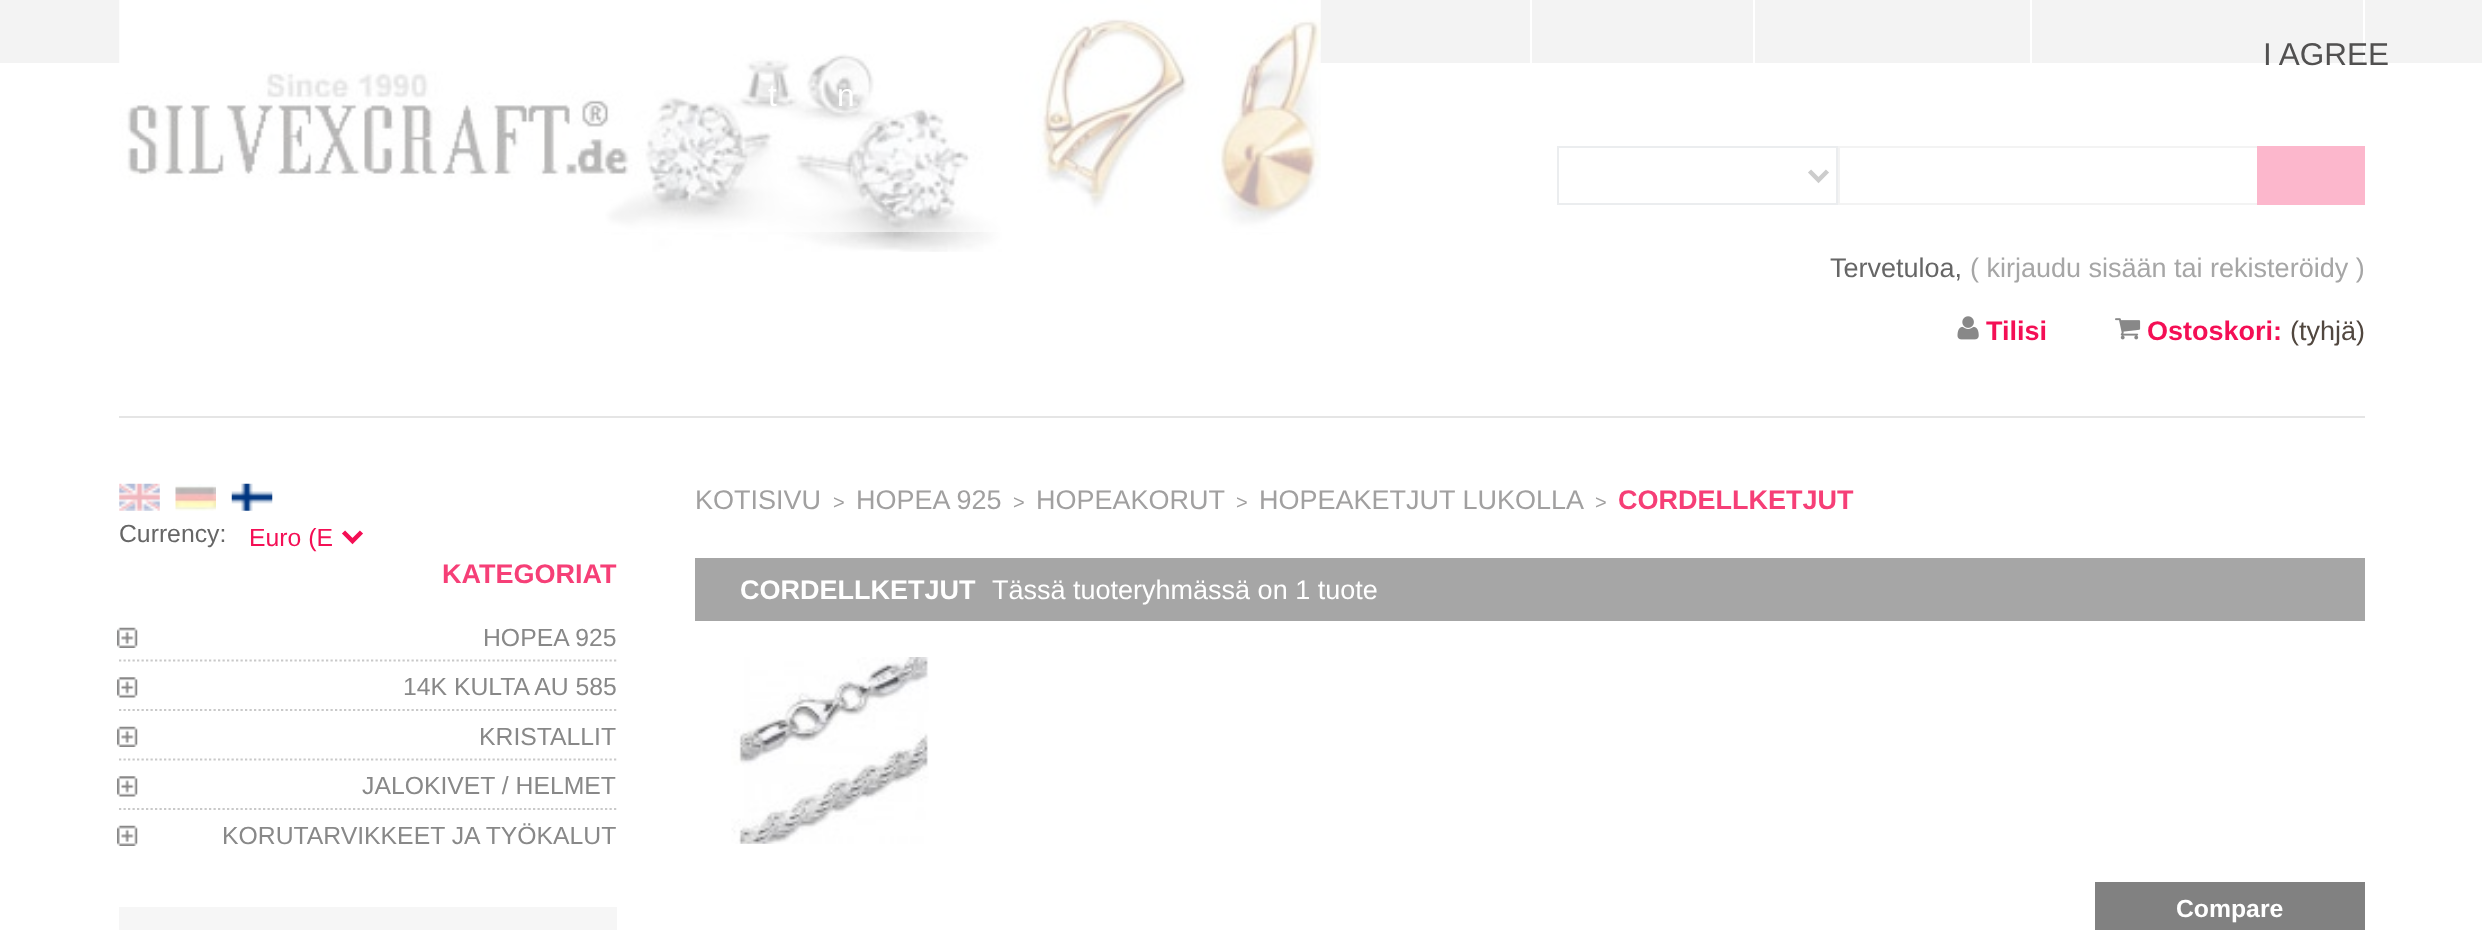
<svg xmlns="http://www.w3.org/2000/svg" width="2482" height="930">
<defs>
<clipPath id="clip1"><path d="M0 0h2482v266h-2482zm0 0h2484v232h-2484z" clip-rule="evenodd"/></clipPath>
</defs>
<rect width="100%" height="100%" fill="#fff"/>
<rect width="2482" height="63" fill="#d7d7d7"/>
<image x="119" y="0" width="1202" height="252" href="media/1.png"/>
<rect x="1530" width="2" height="63" fill="#fff"/>
<rect x="1753" width="2" height="63" fill="#fff"/>
<rect x="2030" width="2" height="63" fill="#fff"/>
<rect x="2363" width="2" height="63" fill="#fff"/>
<rect x="1558" y="147" width="279" height="57" fill="none" stroke="#bdc2c9" stroke-width="2"/>
<path d="M1809.5 171l9 9l9-9" fill="none" stroke="#555" stroke-width="4.5"/>
<rect x="1838" y="146" width="419" height="2" fill="#d7d7d7"/>
<rect x="1838" y="203" width="419" height="2" fill="#d7d7d7"/>
<rect x="1838" y="146" width="2" height="59" fill="#d7d7d7"/>
<rect x="2257" y="146" width="108" height="59" fill="#f40f55"/>
<g clip-path="url(#clip1)">
<rect width="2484" height="232" fill="#ffffffb3" filter="blur(11px)"/>
</g>
<rect width="2482" height="232" fill="#ffffffb3"/>
<text x="2263" y="65" style="font-family:Liberation Sans;font-size:31.5px;fill:#515050">I AGREE</text>
<text x="768" y="106" style="font-family:Liberation Sans;font-size:31.5px;fill:#fff">t</text>
<text x="837" y="106" style="font-family:Liberation Sans;font-size:31.5px;fill:#fff">n</text>
<text x="1830" y="277" style="font-family:Liberation Sans;font-size:27px;fill:#666">Tervetuloa,</text>
<text x="1970" y="277" style="font-family:Liberation Sans;font-size:27px;fill:#a6a6a6">( kirjaudu sisään tai rekisteröidy )</text>
<image x="1957" y="316" width="22" height="24" href="media/2.png"/>
<text x="1986" y="340" style="font-family:Liberation Sans;font-size:27px;font-weight:bold;fill:#f40f55">Tilisi</text>
<image x="2115" y="318" width="26" height="22" href="media/3.png"/>
<text x="2147" y="340" style="font-family:Liberation Sans;font-size:27px;font-weight:bold;fill:#f40f55">Ostoskori:</text>
<text x="2290" y="340" style="font-family:Liberation Sans;font-size:27px;fill:#51473f">(tyhjä)</text>
<rect x="119" y="416" width="2246" height="2" fill="#e5e5e5"/>
<image x="119" y="483" width="41" height="28" href="media/4.png"/>
<image x="175" y="484" width="41" height="27" href="media/5.png"/>
<image x="231" y="483" width="42" height="28" href="media/6.png"/>
<text x="119" y="542" style="font-family:Liberation Sans;font-size:24.75px;fill:#666">Currency:</text>
<path d="M343.5 532l9 9l9-9" fill="none" stroke="#f40f55" stroke-width="4.5"/>
<text x="249" y="546" style="font-family:Liberation Sans;font-size:24.75px;fill:#f40f55">Euro (E</text>
<text x="442" y="583" style="font-family:Liberation Sans;font-size:27px;font-weight:bold;fill:#f63f77">KATEGORIAT</text>
<image x="117" y="627" width="21" height="21" href="media/7.png"/>
<text x="483" y="646" style="font-family:Liberation Sans;font-size:24.75px;fill:#888">HOPEA 925</text>
<path d="M119 660.5h497.5" fill="none" stroke="#c9c9c9" stroke-width="2.2" stroke-dasharray="2.25 2.25"/>
<image x="117" y="677" width="21" height="21" href="media/8.png"/>
<text x="403" y="695" style="font-family:Liberation Sans;font-size:24.75px;fill:#888">14K KULTA AU 585</text>
<path d="M119 710h497.5" fill="none" stroke="#c9c9c9" stroke-width="2.2" stroke-dasharray="2.25 2.25"/>
<image x="117" y="726" width="21" height="21" href="media/7.png"/>
<text x="479" y="745" style="font-family:Liberation Sans;font-size:24.75px;fill:#888">KRISTALLIT</text>
<path d="M119 759.5h497.5" fill="none" stroke="#c9c9c9" stroke-width="2.2" stroke-dasharray="2.25 2.25"/>
<image x="117" y="776" width="21" height="21" href="media/9.png"/>
<text x="362" y="794" style="font-family:Liberation Sans;font-size:24.75px;fill:#888">JALOKIVET / HELMET</text>
<path d="M119 809h497.5" fill="none" stroke="#c9c9c9" stroke-width="2.2" stroke-dasharray="2.25 2.25"/>
<image x="117" y="825" width="21" height="21" href="media/10.png"/>
<text x="222" y="844" style="font-family:Liberation Sans;font-size:24.75px;fill:#888">KORUTARVIKKEET JA TYÖKALUT</text>
<rect x="119" y="907" width="498" height="23" fill="#f6f6f6"/>
<text x="695" y="509" style="font-family:Liberation Sans;font-size:27px;fill:#a1a0a0">KOTISIVU</text>
<text x="833" y="509" style="font-family:Liberation Sans;font-size:20px;fill:#a1a0a0">&gt;</text>
<text x="856" y="509" style="font-family:Liberation Sans;font-size:27px;fill:#a1a0a0">HOPEA 925</text>
<text x="1013" y="509" style="font-family:Liberation Sans;font-size:20px;fill:#a1a0a0">&gt;</text>
<text x="1036" y="509" style="font-family:Liberation Sans;font-size:27px;fill:#a1a0a0">HOPEAKORUT</text>
<text x="1236" y="509" style="font-family:Liberation Sans;font-size:20px;fill:#a1a0a0">&gt;</text>
<text x="1259" y="509" style="font-family:Liberation Sans;font-size:27px;fill:#a1a0a0">HOPEAKETJUT LUKOLLA</text>
<text x="1595" y="509" style="font-family:Liberation Sans;font-size:20px;fill:#a1a0a0">&gt;</text>
<text x="1618" y="509" style="font-family:Liberation Sans;font-size:27px;font-weight:bold;fill:#f63f77">CORDELLKETJUT</text>
<rect x="695" y="558" width="1670" height="63" fill="#a6a6a6"/>
<text x="740" y="599" style="font-family:Liberation Sans;font-size:27px;font-weight:bold;fill:#fff">CORDELLKETJUT</text>
<text x="992" y="599" style="font-family:Liberation Sans;font-size:27px;fill:#fff">Tässä tuoteryhmässä on 1 tuote</text>
<image x="731" y="657" width="198" height="187" href="media/11.png"/>
<rect x="2095" y="882" width="270" height="48" fill="#818181"/>
<text x="2176" y="917" style="font-family:Liberation Sans;font-size:24.75px;font-weight:bold;fill:#fff">Compare</text>
</svg>
